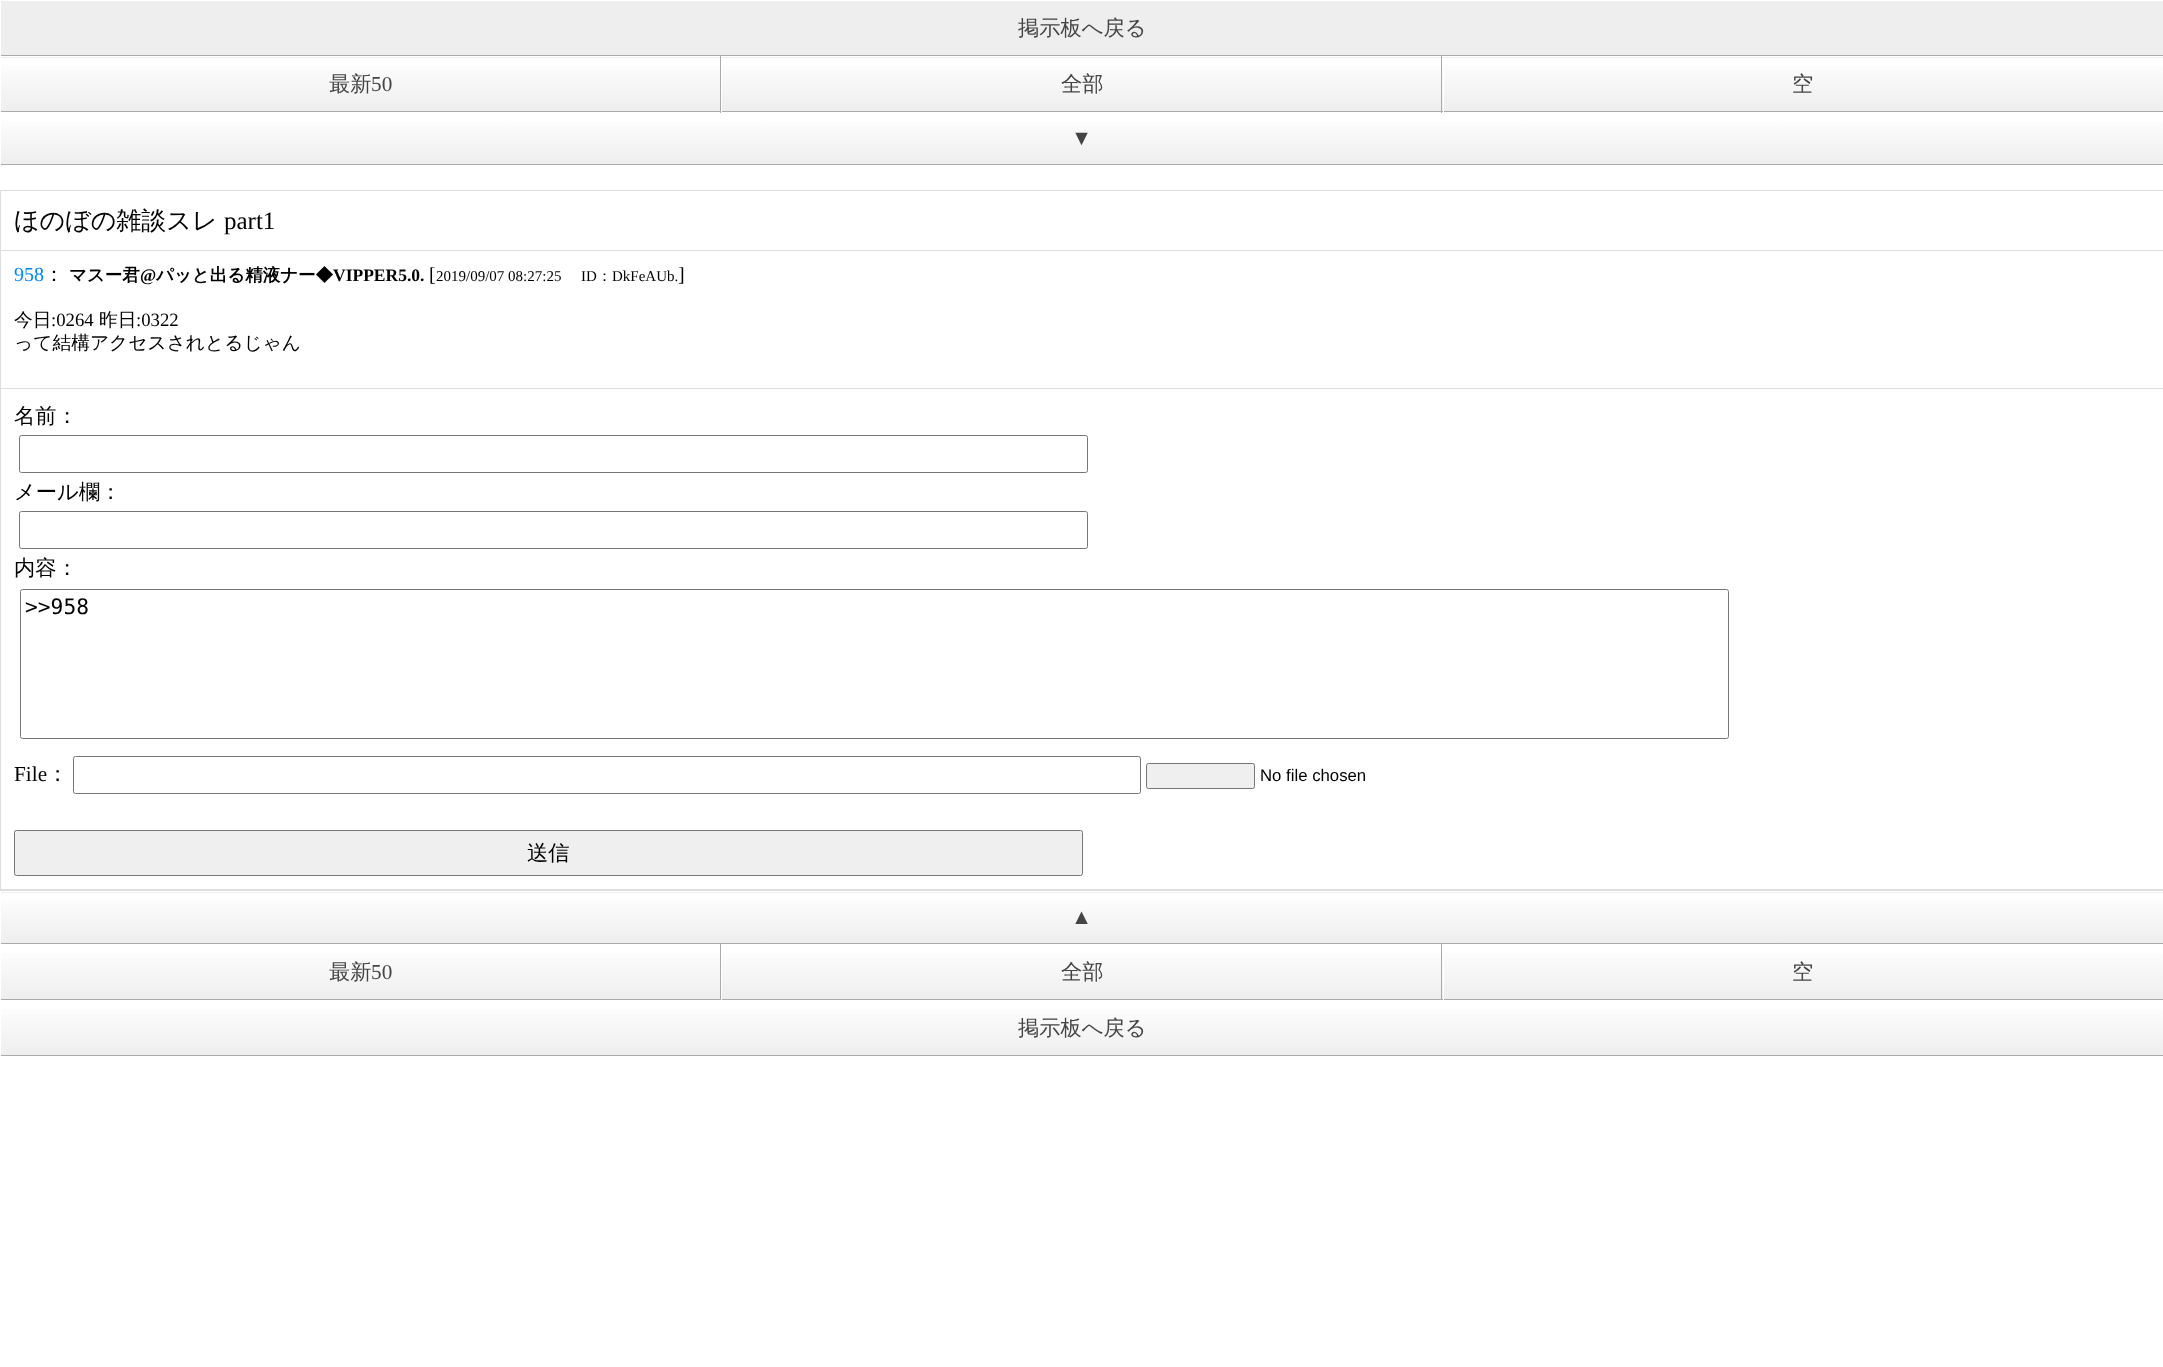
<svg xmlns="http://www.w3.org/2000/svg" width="2163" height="1367">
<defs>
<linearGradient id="g1" gradientUnits="userSpaceOnUse" x1="361" y1="3.7" x2="361" y2="58"><stop offset="0" stop-color="#fff"/><stop offset="1" stop-color="#eee"/></linearGradient>
<linearGradient id="g2" gradientUnits="userSpaceOnUse" x1="361" y1="57" x2="361" y2="111"><stop offset="0" stop-color="#fff"/><stop offset="1" stop-color="#eee"/></linearGradient>
<linearGradient id="g3" gradientUnits="userSpaceOnUse" x1="1082" y1="3.7" x2="1082" y2="58"><stop offset="0" stop-color="#fff"/><stop offset="1" stop-color="#eee"/></linearGradient>
<linearGradient id="g4" gradientUnits="userSpaceOnUse" x1="1082" y1="57" x2="1082" y2="111"><stop offset="0" stop-color="#fff"/><stop offset="1" stop-color="#eee"/></linearGradient>
<linearGradient id="g5" gradientUnits="userSpaceOnUse" x1="1803" y1="3.7" x2="1803" y2="58"><stop offset="0" stop-color="#fff"/><stop offset="1" stop-color="#eee"/></linearGradient>
<linearGradient id="g6" gradientUnits="userSpaceOnUse" x1="1803" y1="57" x2="1803" y2="111"><stop offset="0" stop-color="#fff"/><stop offset="1" stop-color="#eee"/></linearGradient>
<linearGradient id="g7" gradientUnits="userSpaceOnUse" x1="1082" y1="114" x2="1082" y2="164"><stop offset="0" stop-color="#fff"/><stop offset="1" stop-color="#eee"/></linearGradient>
<linearGradient id="g8" gradientUnits="userSpaceOnUse" x1="1082" y1="842" x2="1082" y2="893"><stop offset="0" stop-color="#fff"/><stop offset="1" stop-color="#eee"/></linearGradient>
<linearGradient id="g9" gradientUnits="userSpaceOnUse" x1="1082" y1="892" x2="1082" y2="943"><stop offset="0" stop-color="#fff"/><stop offset="1" stop-color="#eee"/></linearGradient>
<linearGradient id="g10" gradientUnits="userSpaceOnUse" x1="361" y1="945" x2="361" y2="999"><stop offset="0" stop-color="#fff"/><stop offset="1" stop-color="#eee"/></linearGradient>
<linearGradient id="g11" gradientUnits="userSpaceOnUse" x1="1082" y1="945" x2="1082" y2="999"><stop offset="0" stop-color="#fff"/><stop offset="1" stop-color="#eee"/></linearGradient>
<linearGradient id="g12" gradientUnits="userSpaceOnUse" x1="1803" y1="945" x2="1803" y2="999"><stop offset="0" stop-color="#fff"/><stop offset="1" stop-color="#eee"/></linearGradient>
<linearGradient id="g13" gradientUnits="userSpaceOnUse" x1="1082" y1="1001" x2="1082" y2="1055"><stop offset="0" stop-color="#fff"/><stop offset="1" stop-color="#eee"/></linearGradient>
</defs>
<rect width="100%" height="100%" fill="#fff"/>
<rect x="1" y="1" width="2162" height="54" fill="#eee"/>
<rect y="55" width="2163" height="1" fill="#aaa"/>
<rect y="55" width="1" height="1" fill="#fff"/>
<text x="1018" y="35" style="font-family:WenQuanYi Zen Hei;font-size:21.25px;font-weight:500;fill:#444">掲示板へ戻る</text>
<rect y="57" width="721" height="1" fill="url(#g1)"/>
<rect x="1" y="65" width="719" height="46" fill="url(#g2)"/>
<rect x="720" y="56" width="1" height="57" fill="#aaa"/>
<rect y="111" width="721" height="1" fill="#aaa"/>
<rect y="56" width="1" height="57" fill="#fff"/>
<text x="329" y="91" style="font-family:WenQuanYi Zen Hei;font-size:21.25px;font-weight:500;fill:#444">最新</text>
<text x="371" y="91" style="font-family:Liberation Serif;font-size:21.25px;fill:#444">50</text>
<rect x="721" y="57" width="722" height="1" fill="url(#g3)"/>
<rect x="722" y="65" width="721" height="46" fill="url(#g4)"/>
<rect x="1441" y="56" width="1" height="57" fill="#aaa"/>
<rect x="721" y="111" width="1442" height="1" fill="#aaa"/>
<rect x="721" y="56" width="1" height="57" fill="#fff"/>
<text x="1061" y="91" style="font-family:WenQuanYi Zen Hei;font-size:21.25px;font-weight:500;fill:#444">全部</text>
<rect x="1443" y="57" width="720" height="1" fill="url(#g5)"/>
<rect x="1444" y="65" width="719" height="46" fill="url(#g6)"/>
<rect x="1443" y="56" width="1" height="57" fill="#fff"/>
<text x="1792" y="91" style="font-family:WenQuanYi Zen Hei;font-size:21.25px;font-weight:500;fill:#444">空</text>
<rect x="1" y="121" width="2162" height="43" fill="url(#g7)"/>
<rect y="164" width="2163" height="1" fill="#aaa"/>
<rect y="164" width="1" height="1" fill="#fff"/>
<text x="1071" y="145" style="font-family:Liberation Serif;font-size:21.25px;fill:#444">▼</text>
<rect x="0.5" y="190.5" width="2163" height="700" fill="none" stroke="#ddd"/>
<rect x="1" y="250" width="2162" height="1" fill="#ddd"/>
<text x="14" y="229" style="font-family:WenQuanYi Zen Hei;font-size:25px;font-weight:500;fill:#000">ほのぼの雑談スレ</text>
<text x="224" y="229" style="font-family:Liberation Serif;font-size:25px;fill:#000">part1</text>
<text x="14" y="281" style="font-family:Liberation Serif;font-size:20px;fill:#08f">958</text>
<text x="44" y="281" style="font-family:WenQuanYi Zen Hei;font-size:20px;font-weight:500;fill:#000">：</text>
<text x="69" y="281" style="font-family:WenQuanYi Zen Hei;font-size:17.5px;font-weight:bold;fill:#000">マスー君</text>
<text x="140" y="281" style="font-family:Liberation Serif;font-size:17.5px;font-weight:bold;fill:#000">@</text>
<text x="156" y="281" style="font-family:WenQuanYi Zen Hei;font-size:17.5px;font-weight:bold;fill:#000">パッと出る精液ナー◆</text>
<text x="333" y="281" style="font-family:Liberation Serif;font-size:17.5px;font-weight:bold;fill:#000">VIPPER5.0.</text>
<text x="429" y="281" style="font-family:Liberation Serif;font-size:20px;fill:#000">[</text>
<text x="436" y="281" style="font-family:Liberation Serif;font-size:15px;fill:#000">2019/09/07 08:27:25</text>
<text x="581" y="281" style="font-family:Liberation Serif;font-size:15px;fill:#000">ID</text>
<text x="597" y="281" style="font-family:WenQuanYi Zen Hei;font-size:15px;font-weight:500;fill:#000">：</text>
<text x="612" y="281" style="font-family:Liberation Serif;font-size:15px;fill:#000">DkFeAUb.</text>
<text x="678" y="281" style="font-family:Liberation Serif;font-size:20px;fill:#000">]</text>
<text x="14" y="326" style="font-family:WenQuanYi Zen Hei;font-size:18.75px;font-weight:500;fill:#000">今日</text>
<text x="51" y="326" style="font-family:Liberation Serif;font-size:18.75px;fill:#000">:0264</text>
<text x="99" y="326" style="font-family:WenQuanYi Zen Hei;font-size:18.75px;font-weight:500;fill:#000">昨日</text>
<text x="136" y="326" style="font-family:Liberation Serif;font-size:18.75px;fill:#000">:0322</text>
<text x="14" y="349" style="font-family:WenQuanYi Zen Hei;font-size:18.75px;font-weight:500;fill:#000">って結構アクセスされとるじゃん</text>
<rect x="1" y="388" width="2162" height="1" fill="#ddd"/>
<rect x="1" y="889" width="2162" height="1" fill="#ddd"/>
<text x="14" y="423" style="font-family:WenQuanYi Zen Hei;font-size:21.25px;font-weight:500;fill:#000">名前：</text>
<rect x="19.5" y="435.5" width="1068" height="37" rx="2" fill="none" stroke="#767676"/>
<text x="14" y="499" style="font-family:WenQuanYi Zen Hei;font-size:21.25px;font-weight:500;fill:#000">メール欄：</text>
<rect x="19.5" y="511.5" width="1068" height="37" rx="2" fill="none" stroke="#767676"/>
<text x="14" y="575" style="font-family:WenQuanYi Zen Hei;font-size:21.25px;font-weight:500;fill:#000">内容：</text>
<rect x="20.5" y="589.5" width="1708" height="149" rx="2" fill="none" stroke="#767676"/>
<text x="25" y="614" style="font-family:DejaVu Sans Mono;font-size:21.25px;fill:#000">&gt;&gt;958</text>
<text x="14" y="781" style="font-family:Liberation Serif;font-size:21.25px;fill:#000">File</text>
<text x="47" y="781" style="font-family:WenQuanYi Zen Hei;font-size:21.25px;font-weight:500;fill:#000">：</text>
<rect x="73.5" y="756.5" width="1067" height="37" rx="2" fill="none" stroke="#767676"/>
<rect x="1146.5" y="763.5" width="108" height="25" rx="2" fill="#efefef" stroke="#767676"/>
<text x="1260" y="781" style="font-family:Liberation Sans;font-size:16.75px;fill:#000">No file chosen</text>
<rect x="14.5" y="830.5" width="1068" height="45" rx="2" fill="#efefef" stroke="#767676"/>
<text x="527" y="860" style="font-family:WenQuanYi Zen Hei;font-size:21.25px;font-weight:500;fill:#000">送信</text>
<rect y="892" width="2163" height="1" fill="url(#g8)"/>
<rect x="1" y="900" width="2162" height="43" fill="url(#g9)"/>
<rect y="943" width="2163" height="1" fill="#aaa"/>
<rect y="891" width="1" height="53" fill="#fff"/>
<text x="1071" y="924" style="font-family:Liberation Serif;font-size:21.25px;fill:#444">▲</text>
<rect x="1" y="953" width="719" height="46" fill="url(#g10)"/>
<rect x="720" y="944" width="1" height="56" fill="#aaa"/>
<rect y="999" width="721" height="1" fill="#aaa"/>
<rect y="999" width="1" height="1" fill="#fff"/>
<text x="329" y="979" style="font-family:WenQuanYi Zen Hei;font-size:21.25px;font-weight:500;fill:#444">最新</text>
<text x="371" y="979" style="font-family:Liberation Serif;font-size:21.25px;fill:#444">50</text>
<rect x="722" y="953" width="721" height="46" fill="url(#g11)"/>
<rect x="1441" y="944" width="1" height="56" fill="#aaa"/>
<rect x="721" y="999" width="1442" height="1" fill="#aaa"/>
<rect x="721" y="999" width="1" height="1" fill="#fff"/>
<text x="1061" y="979" style="font-family:WenQuanYi Zen Hei;font-size:21.25px;font-weight:500;fill:#444">全部</text>
<rect x="1444" y="953" width="719" height="46" fill="url(#g12)"/>
<rect x="1443" y="999" width="1" height="1" fill="#fff"/>
<text x="1792" y="979" style="font-family:WenQuanYi Zen Hei;font-size:21.25px;font-weight:500;fill:#444">空</text>
<rect x="1" y="1009" width="2162" height="46" fill="url(#g13)"/>
<rect y="1055" width="2163" height="1" fill="#aaa"/>
<rect y="1055" width="1" height="1" fill="#fff"/>
<text x="1018" y="1035" style="font-family:WenQuanYi Zen Hei;font-size:21.25px;font-weight:500;fill:#444">掲示板へ戻る</text>
</svg>
